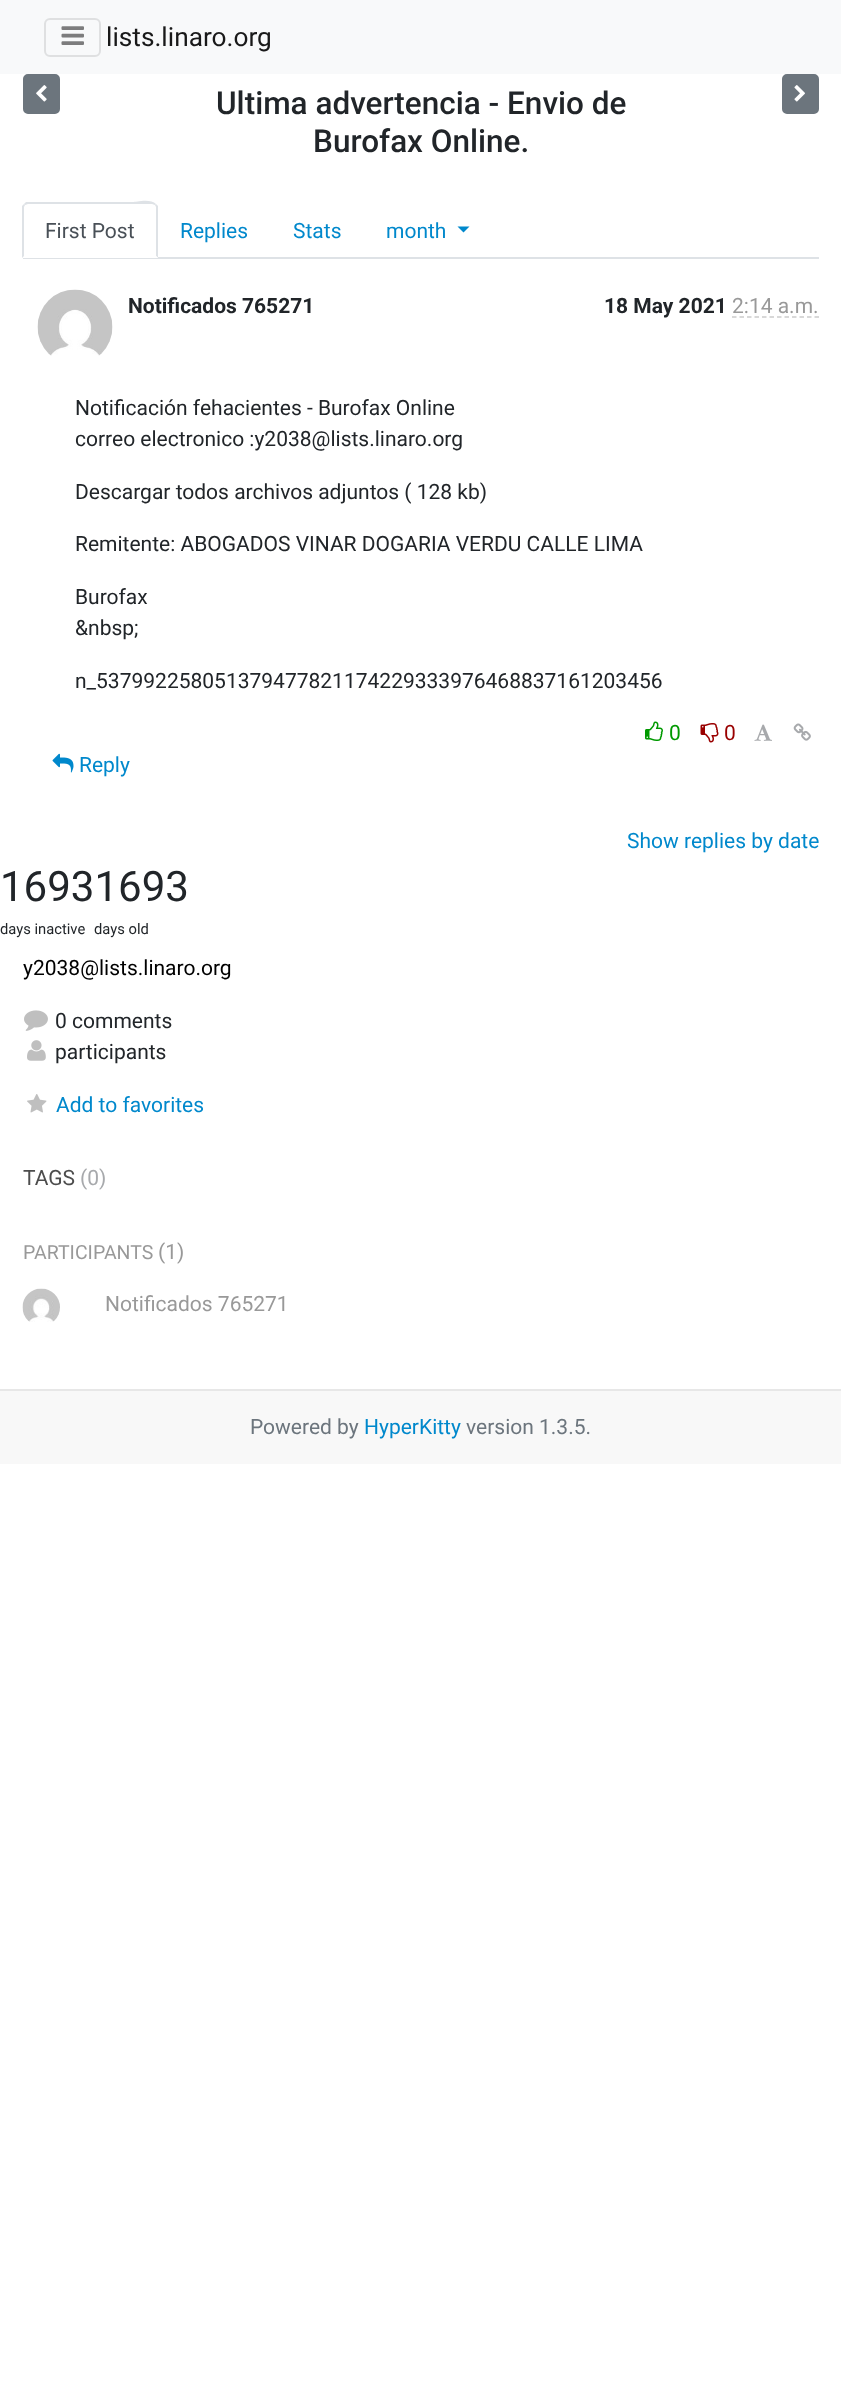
<svg xmlns="http://www.w3.org/2000/svg" width="841" height="2384">
<rect width="100%" height="100%" fill="#fff"/>
<rect width="841" height="74" fill="#f8f9fa"/>
<rect x="45" y="19" width="55" height="37" rx="5" fill="none" stroke="#dfe0e1" stroke-width="2"/>
<image x="61" y="26" width="23" height="19" href="media/1.png"/>
<text x="106" y="46" style="font-family:Roboto;font-size:26.25px;fill:#191919">lists.linaro.org</text>
<rect x="24" y="75" width="35" height="38" rx="4" fill="#6c757d" stroke="#6c757d" stroke-width="2"/>
<image x="36" y="85" width="11" height="17" href="media/2.png"/>
<text x="216" y="114" style="font-family:Roboto;font-size:31.5px;font-weight:500;fill:#212529">Ultima advertencia - Envio de</text>
<text x="313" y="152" style="font-family:Roboto;font-size:31.5px;font-weight:500;fill:#212529">Burofax Online.</text>
<rect x="783" y="75" width="35" height="38" rx="4" fill="#6c757d" stroke="#6c757d" stroke-width="2"/>
<image x="794" y="85" width="11" height="17" href="media/3.png"/>
<rect x="23" y="257" width="796" height="2" fill="#dee2e6"/>
<path d="M29 203h123c3.5 0 6 2.5 6 6v49h-135v-49c0-3.5 2.5-6 6-6z" fill="#fff"/>
<path d="M28 204l-3 1l-1-1l2-2h107c2 0 18-4 23 2l-1 1l-3-1z" fill="#dee2e6"/>
<path d="M158 206v52l-2-2v-49l-1-2l1-1z" fill="#dee2e6"/>
<path d="M158 258l-2-2h-132l-2 2z" fill="#fff"/>
<path d="M22 258v-52l2-2l1 1l-1 2v49z" fill="#dee2e6"/>
<text x="45" y="238" style="font-family:Roboto;font-size:21px;fill:#495057">First Post</text>
<text x="180" y="238" style="font-family:Roboto;font-size:21px;fill:#08c">Replies</text>
<text x="293" y="238" style="font-family:Roboto;font-size:21px;fill:#08c">Stats</text>
<text x="386" y="238" style="font-family:Roboto;font-size:21px;fill:#08c">month</text>
<path d="M457.5 226.5h12l-6 6z" fill="#08c"/>
<image x="37" y="289" width="76" height="67" href="media/4.png"/>
<text x="128" y="313" style="font-family:Roboto;font-size:21px;font-weight:bold;fill:#212529">Notificados 765271</text>
<text x="604" y="313" style="font-family:Roboto;font-size:21px;font-weight:bold;fill:#212529">18 May 2021</text>
<text x="732" y="313" style="font-family:Roboto;font-size:21px;fill:#999">2:14 a.m.</text>
<path d="M732 317h87" fill="none" stroke="#ccc" stroke-width="1.5" stroke-dasharray="4.5 3"/>
<text x="75" y="415" style="font-family:Roboto;font-size:21px;fill:#212529">Notificación fehacientes - Burofax Online</text>
<text x="75" y="446" style="font-family:Roboto;font-size:21px;fill:#212529">correo electronico :y2038@lists.linaro.org</text>
<text x="75" y="499" style="font-family:Roboto;font-size:21px;fill:#212529">Descargar todos archivos adjuntos ( 128 kb)</text>
<text x="75" y="551" style="font-family:Roboto;font-size:21px;fill:#212529">Remitente: ABOGADOS VINAR DOGARIA VERDU CALLE LIMA</text>
<text x="75" y="604" style="font-family:Roboto;font-size:21px;fill:#212529">Burofax</text>
<text x="75" y="635" style="font-family:Roboto;font-size:21px;fill:#212529">&amp;nbsp;</text>
<text x="75" y="688" style="font-family:Roboto;font-size:21px;fill:#212529">n_537992258051379477821174229333976468837161203456</text>
<image x="645" y="721" width="18" height="20" href="media/5.png"/>
<text x="669" y="740" style="font-family:Roboto;font-size:21px;fill:#090">0</text>
<image x="700" y="723" width="19" height="20" href="media/6.png"/>
<text x="724" y="740" style="font-family:Roboto;font-size:21px;fill:#900">0</text>
<image x="754" y="724" width="18" height="17" href="media/7.png"/>
<image x="793" y="723" width="18" height="18" href="media/8.png"/>
<image x="52" y="753" width="22" height="20" href="media/9.png"/>
<text x="79" y="772" style="font-family:Roboto;font-size:21px;fill:#08c">Reply</text>
<text x="627" y="848" style="font-family:Roboto;font-size:21px;fill:#08c">Show replies by date</text>
<text x="0" y="901" style="font-family:Roboto;font-size:42px;fill:#212529">16931693</text>
<text x="0" y="934" style="font-family:Roboto;font-size:14.75px;fill:#212529">days inactive</text>
<text x="94" y="934" style="font-family:Roboto;font-size:14.75px;fill:#212529">days old</text>
<text x="23" y="975" style="font-family:Roboto;font-size:21px;fill:#000">y2038@lists.linaro.org</text>
<image x="24" y="1010" width="24" height="21" href="media/10.png"/>
<text x="55" y="1028" style="font-family:Roboto;font-size:21px;fill:#212529">0 comments</text>
<image x="27" y="1040" width="19" height="21" href="media/11.png"/>
<text x="55" y="1059" style="font-family:Roboto;font-size:21px;fill:#212529">participants</text>
<image x="27" y="1094" width="20" height="19" href="media/12.png"/>
<text x="56" y="1112" style="font-family:Roboto;font-size:21px;fill:#08c">Add to favorites</text>
<text x="23" y="1185" style="font-family:Roboto;font-size:21px;fill:#4d4d4d">TAGS</text>
<text x="80" y="1185" style="font-family:Roboto;font-size:21px;fill:#a7a9ac">(0)</text>
<text x="23" y="1259" style="font-family:Roboto;font-size:19.5px;fill:#999">PARTICIPANTS</text>
<text x="158" y="1259" style="font-family:Roboto;font-size:21px;fill:#999">(1)</text>
<image x="22" y="1288" width="38" height="34" href="media/13.png"/>
<text x="105" y="1311" style="font-family:Roboto;font-size:21px;fill:#999">Notificados 765271</text>
<rect y="1391" width="841" height="73" fill="#f8f8f8"/>
<rect y="1389" width="841" height="2" fill="#e7e7e7"/>
<text x="250" y="1434" style="font-family:Roboto;font-size:21px;fill:#6c757d">Powered by</text>
<text x="364" y="1434" style="font-family:Roboto;font-size:21px;fill:#08c">HyperKitty</text>
<text x="466" y="1434" style="font-family:Roboto;font-size:21px;fill:#6c757d">version 1.3.5.</text>
</svg>
